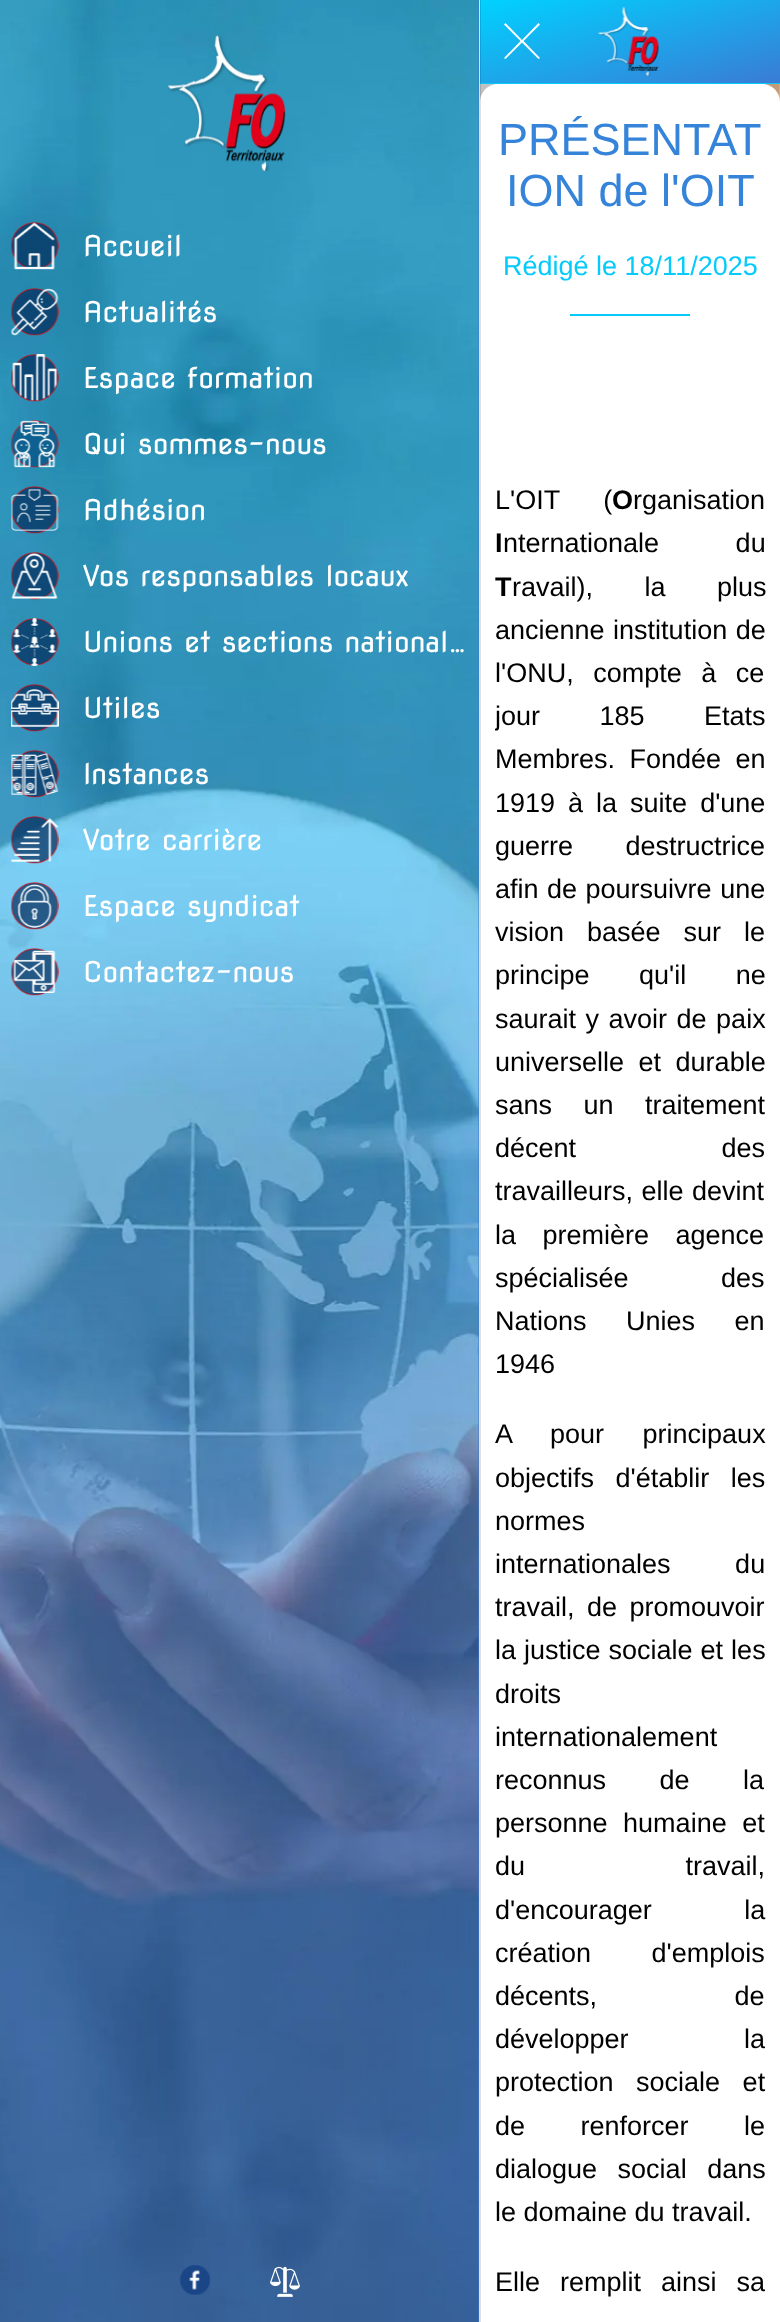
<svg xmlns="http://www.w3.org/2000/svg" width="780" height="2322">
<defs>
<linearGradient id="g1" gradientUnits="userSpaceOnUse" x1="608" y1="-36" x2="652" y2="120"><stop offset="0" stop-color="#00d2ff"/><stop offset="1" stop-color="#3a7bd5"/></linearGradient>
<clipPath id="clip1"><rect x="495" y="465" width="270" height="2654"/></clipPath>
</defs>
<rect width="100%" height="100%" fill="#fff"/>
<image x="480" y="84" width="300" height="18" href="media/1.png"/>
<rect x="480" width="300" height="83" fill="url(#g1)"/>
<rect x="480" y="83" width="300" height="1" fill="#05cafb"/>
<path d="M498 84h264c10 0 18 8 18 18v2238h-300v-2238c0-10 8-18 18-18z" fill="#fff"/>
<rect x="479" width="2" height="2322" fill="#0000001f"/>
<rect x="478" width="1" height="2322" fill="#3a7bd5"/>
<image x="0" y="0" width="479" height="2322" href="media/2.png"/>
<image x="167" y="35" width="119" height="136" href="media/3.png"/>
<image x="11" y="222" width="48" height="48" href="media/4.png"/>
<text x="83" y="256" style="font-family:Nova Flat;font-size:28.5px;fill:#fff">Accueil</text>
<image x="11" y="288" width="48" height="48" href="media/5.png"/>
<text x="83" y="322" style="font-family:Nova Flat;font-size:28.5px;fill:#fff">Actualités</text>
<image x="11" y="354" width="48" height="48" href="media/6.png"/>
<text x="83" y="388" style="font-family:Nova Flat;font-size:28.5px;fill:#fff">Espace formation</text>
<image x="11" y="420" width="48" height="48" href="media/7.png"/>
<text x="83" y="454" style="font-family:Nova Flat;font-size:28.5px;fill:#fff">Qui sommes-nous</text>
<image x="11" y="486" width="48" height="48" href="media/8.png"/>
<text x="83" y="520" style="font-family:Nova Flat;font-size:28.5px;fill:#fff">Adhésion</text>
<image x="11" y="552" width="48" height="48" href="media/9.png"/>
<text x="83" y="586" style="font-family:Nova Flat;font-size:28.5px;fill:#fff">Vos responsables locaux</text>
<image x="11" y="618" width="48" height="48" href="media/10.png"/>
<text x="83" y="652" style="font-family:Nova Flat;font-size:28.5px;fill:#fff">Unions et sections national…</text>
<image x="11" y="684" width="48" height="48" href="media/11.png"/>
<text x="83" y="718" style="font-family:Nova Flat;font-size:28.5px;fill:#fff">Utiles</text>
<image x="11" y="750" width="48" height="48" href="media/12.png"/>
<text x="83" y="784" style="font-family:Nova Flat;font-size:28.5px;fill:#fff">Instances</text>
<image x="11" y="816" width="48" height="48" href="media/13.png"/>
<text x="83" y="850" style="font-family:Nova Flat;font-size:28.5px;fill:#fff">Votre carrière</text>
<image x="11" y="882" width="48" height="48" href="media/14.png"/>
<text x="83" y="916" style="font-family:Nova Flat;font-size:28.5px;fill:#fff">Espace syndicat</text>
<image x="11" y="948" width="48" height="48" href="media/15.png"/>
<text x="83" y="982" style="font-family:Nova Flat;font-size:28.5px;fill:#fff">Contactez-nous</text>
<image x="179" y="2265" width="31" height="30" href="media/16.png"/>
<image x="270" y="2266" width="30" height="31" href="media/17.png"/>
<path d="M540 24.5l-1.5-1.5l-16.5 17l-16.5-17l-1.5 1.5l16.5 16.5l-16.5 17l1.5 1l16.5-16.5l16.5 16.5l1.5-1l-16.5-17z" fill="#fff"/>
<image x="598" y="7" width="61" height="69" href="media/18.png"/>
<text x="498" y="155" style="font-family:Liberation Sans;font-size:45px;fill:#3584d9">PRÉSENTAT</text>
<text x="506" y="206" style="font-family:Liberation Sans;font-size:45px;fill:#3584d9">ION de l'OIT</text>
<text x="503" y="275" style="font-family:Liberation Sans;font-size:27px;fill:#05cafb">Rédigé le 18/11/2025</text>
<rect x="570" y="314" width="120" height="2" fill="#05cafb"/>
<text x="495" y="509" word-spacing="36" style="font-family:Liberation Sans;font-size:27px;fill:#000">L'OIT (</text>
<text x="612" y="509" style="font-family:Liberation Sans;font-size:27px;font-weight:bold;fill:#000">O</text>
<text x="633" y="509" style="font-family:Liberation Sans;font-size:27px;fill:#000">rganisation</text>
<text x="495" y="552" style="font-family:Liberation Sans;font-size:27px;font-weight:bold;fill:#000">I</text>
<text x="503" y="552" word-spacing="69" style="font-family:Liberation Sans;font-size:27px;fill:#000">nternationale du</text>
<text x="495" y="596" style="font-family:Liberation Sans;font-size:27px;font-weight:bold;fill:#000">T</text>
<text x="512" y="596" word-spacing="44" style="font-family:Liberation Sans;font-size:27px;fill:#000">ravail), la plus</text>
<text x="495" y="639" word-spacing="1" style="font-family:Liberation Sans;font-size:27px;fill:#000">ancienne institution de</text>
<text x="495" y="682" word-spacing="12" style="font-family:Liberation Sans;font-size:27px;fill:#000">l'ONU, compte à ce</text>
<g clip-path="url(#clip1)">
<text x="495" y="725" word-spacing="52" style="font-family:Liberation Sans;font-size:27px;fill:#000">jour 185 Etats</text>
</g>
<text x="495" y="768" word-spacing="7" style="font-family:Liberation Sans;font-size:27px;fill:#000">Membres. Fondée en</text>
<text x="495" y="812" word-spacing="5.5" style="font-family:Liberation Sans;font-size:27px;fill:#000">1919 à la suite d'une</text>
<text x="495" y="855" word-spacing="45" style="font-family:Liberation Sans;font-size:27px;fill:#000">guerre destructrice</text>
<text x="495" y="898" word-spacing="1" style="font-family:Liberation Sans;font-size:27px;fill:#000">afin de poursuivre une</text>
<text x="495" y="941" word-spacing="15.5" style="font-family:Liberation Sans;font-size:27px;fill:#000">vision basée sur le</text>
<text x="495" y="984" word-spacing="42" style="font-family:Liberation Sans;font-size:27px;fill:#000">principe qu'il ne</text>
<text x="495" y="1028" word-spacing="2" style="font-family:Liberation Sans;font-size:27px;fill:#000">saurait y avoir de paix</text>
<text x="495" y="1071" word-spacing="7" style="font-family:Liberation Sans;font-size:27px;fill:#000">universelle et durable</text>
<text x="495" y="1114" word-spacing="24" style="font-family:Liberation Sans;font-size:27px;fill:#000">sans un traitement</text>
<text x="495" y="1157" word-spacing="138" style="font-family:Liberation Sans;font-size:27px;fill:#000">décent des</text>
<text x="495" y="1200" word-spacing="1" style="font-family:Liberation Sans;font-size:27px;fill:#000">travailleurs, elle devint</text>
<text x="495" y="1244" word-spacing="19" style="font-family:Liberation Sans;font-size:27px;fill:#000">la première agence</text>
<text x="495" y="1287" word-spacing="85" style="font-family:Liberation Sans;font-size:27px;fill:#000">spécialisée des</text>
<text x="495" y="1330" word-spacing="32" style="font-family:Liberation Sans;font-size:27px;fill:#000">Nations Unies en</text>
<text x="495" y="1373" style="font-family:Liberation Sans;font-size:27px;fill:#000">1946</text>
<text x="495" y="1443" word-spacing="31" style="font-family:Liberation Sans;font-size:27px;fill:#000">A pour principaux</text>
<text x="495" y="1487" word-spacing="14" style="font-family:Liberation Sans;font-size:27px;fill:#000">objectifs d'établir les</text>
<text x="495" y="1530" style="font-family:Liberation Sans;font-size:27px;fill:#000">normes</text>
<text x="495" y="1573" word-spacing="57" style="font-family:Liberation Sans;font-size:27px;fill:#000">internationales du</text>
<text x="495" y="1616" word-spacing="5" style="font-family:Liberation Sans;font-size:27px;fill:#000">travail, de promouvoir</text>
<text x="495" y="1659" word-spacing="0.5" style="font-family:Liberation Sans;font-size:27px;fill:#000">la justice sociale et les</text>
<text x="495" y="1703" style="font-family:Liberation Sans;font-size:27px;fill:#000">droits</text>
<text x="495" y="1746" style="font-family:Liberation Sans;font-size:27px;fill:#000">internationalement</text>
<text x="495" y="1789" word-spacing="46" style="font-family:Liberation Sans;font-size:27px;fill:#000">reconnus de la</text>
<text x="495" y="1832" word-spacing="8" style="font-family:Liberation Sans;font-size:27px;fill:#000">personne humaine et</text>
<text x="495" y="1875" word-spacing="153" style="font-family:Liberation Sans;font-size:27px;fill:#000">du travail,</text>
<text x="495" y="1919" word-spacing="85" style="font-family:Liberation Sans;font-size:27px;fill:#000">d'encourager la</text>
<text x="495" y="1962" word-spacing="53" style="font-family:Liberation Sans;font-size:27px;fill:#000">création d'emplois</text>
<text x="495" y="2005" word-spacing="130" style="font-family:Liberation Sans;font-size:27px;fill:#000">décents, de</text>
<text x="495" y="2048" word-spacing="108" style="font-family:Liberation Sans;font-size:27px;fill:#000">développer la</text>
<text x="495" y="2091" word-spacing="15" style="font-family:Liberation Sans;font-size:27px;fill:#000">protection sociale et</text>
<text x="495" y="2135" word-spacing="48" style="font-family:Liberation Sans;font-size:27px;fill:#000">de renforcer le</text>
<text x="495" y="2178" word-spacing="13" style="font-family:Liberation Sans;font-size:27px;fill:#000">dialogue social dans</text>
<text x="495" y="2221" style="font-family:Liberation Sans;font-size:27px;fill:#000">le domaine du travail.</text>
<text x="495" y="2291" word-spacing="12.5" style="font-family:Liberation Sans;font-size:27px;fill:#000">Elle remplit ainsi sa</text>
</svg>
